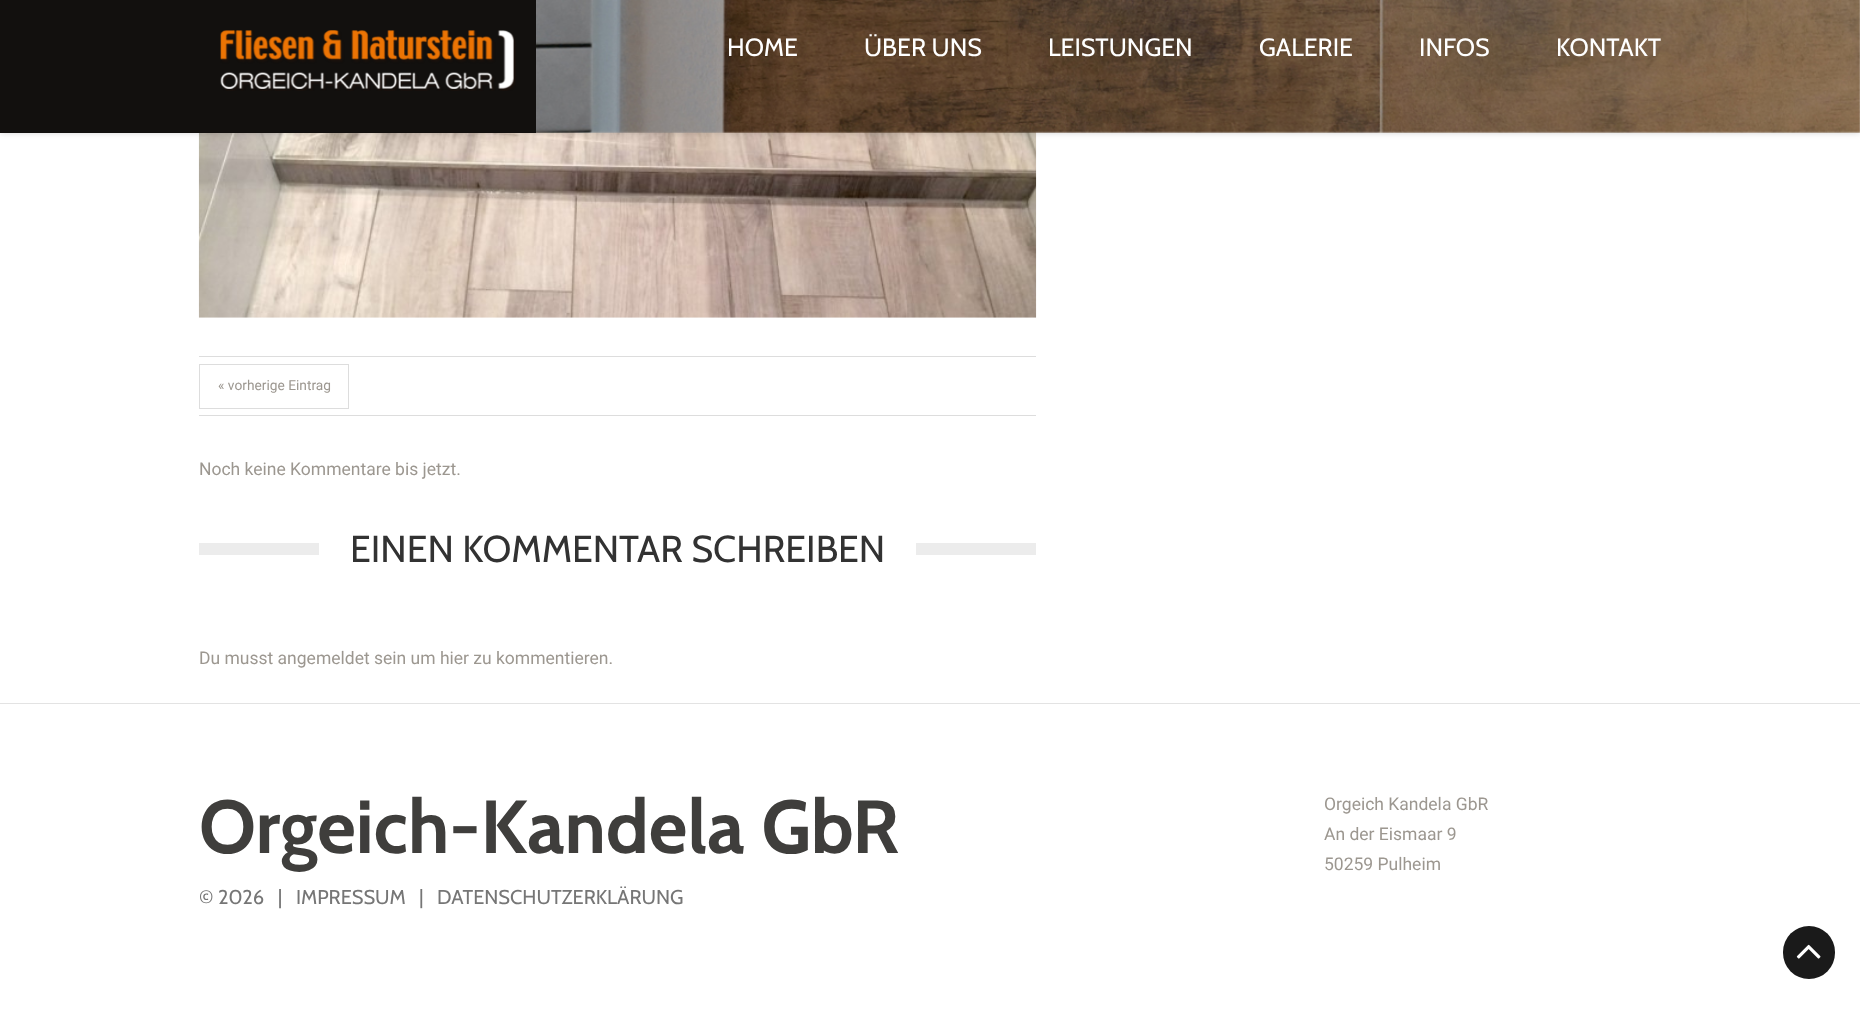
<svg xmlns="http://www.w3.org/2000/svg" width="1860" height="1021">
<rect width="100%" height="100%" fill="#fff"/>
<image x="198" y="131" width="839" height="187" href="media/3.png"/>
<rect width="1860" height="133" fill="#32323233" filter="blur(3px)"/>
<image x="536" y="0" width="1324" height="133" href="media/1.png"/>
<rect width="536" height="133" fill="#12100e"/>
<image x="220" y="30" width="296" height="61" href="media/2.png"/>
<text x="727" y="56" style="font-family:Cabin;font-size:25px;fill:#fff">HOME</text>
<text x="864" y="56" style="font-family:Cabin;font-size:25px;fill:#fff">ÜBER UNS</text>
<text x="1048" y="56" style="font-family:Cabin;font-size:25px;fill:#fff">LEISTUNGEN</text>
<text x="1259" y="56" style="font-family:Cabin;font-size:25px;fill:#fff">GALERIE</text>
<text x="1419" y="56" style="font-family:Cabin;font-size:25px;fill:#fff">INFOS</text>
<text x="1556" y="56" style="font-family:Cabin;font-size:25px;fill:#fff">KONTAKT</text>
<rect x="199" y="356" width="837" height="1" fill="#ddd"/>
<rect x="199" y="415" width="837" height="1" fill="#ddd"/>
<rect x="199.5" y="364.5" width="149" height="44" fill="none" stroke="#ddd"/>
<text x="218" y="390" style="font-family:Roboto;font-size:13.75px;fill:#9c9790">« vorherige Eintrag</text>
<text x="199" y="475" style="font-family:Roboto;font-size:17.5px;fill:#9c9790">Noch keine Kommentare bis jetzt.</text>
<rect x="199" y="543" width="120" height="12" fill="#ececec"/>
<text x="350" y="562" style="font-family:Cabin;font-size:37.5px;fill:#323232">EINEN KOMMENTAR SCHREIBEN</text>
<rect x="916" y="543" width="120" height="12" fill="#ececec"/>
<text x="199" y="664" style="font-family:Roboto;font-size:17.5px;fill:#9c9790">Du musst angemeldet sein um hier zu kommentieren.</text>
<rect y="703" width="1860" height="1" fill="#e3e3e3"/>
<text x="199" y="853" style="font-family:Cabin;font-size:75px;font-weight:bold;fill:#3f3e3c">Orgeich-Kandela GbR</text>
<text x="199" y="904" style="font-family:Cabin;font-size:20px;fill:#767676" xml:space="preserve">© 2026   |</text>
<text x="296" y="904" style="font-family:Cabin;font-size:20px;fill:#767676">IMPRESSUM</text>
<text x="419" y="904" style="font-family:Cabin;font-size:20px;fill:#767676">|</text>
<text x="437" y="904" style="font-family:Cabin;font-size:20px;fill:#767676">DATENSCHUTZERKLÄRUNG</text>
<text x="1324" y="810" style="font-family:Roboto;font-size:17.5px;fill:#9c9790">Orgeich Kandela GbR</text>
<text x="1324" y="840" style="font-family:Roboto;font-size:17.5px;fill:#9c9790">An der Eismaar 9</text>
<text x="1324" y="870" style="font-family:Roboto;font-size:17.5px;fill:#9c9790">50259 Pulheim</text>
<rect x="1783" y="926" width="52" height="53" rx="26" fill="#1a1a1a"/>
<image x="1796" y="944" width="25" height="15" href="media/4.png"/>
</svg>
